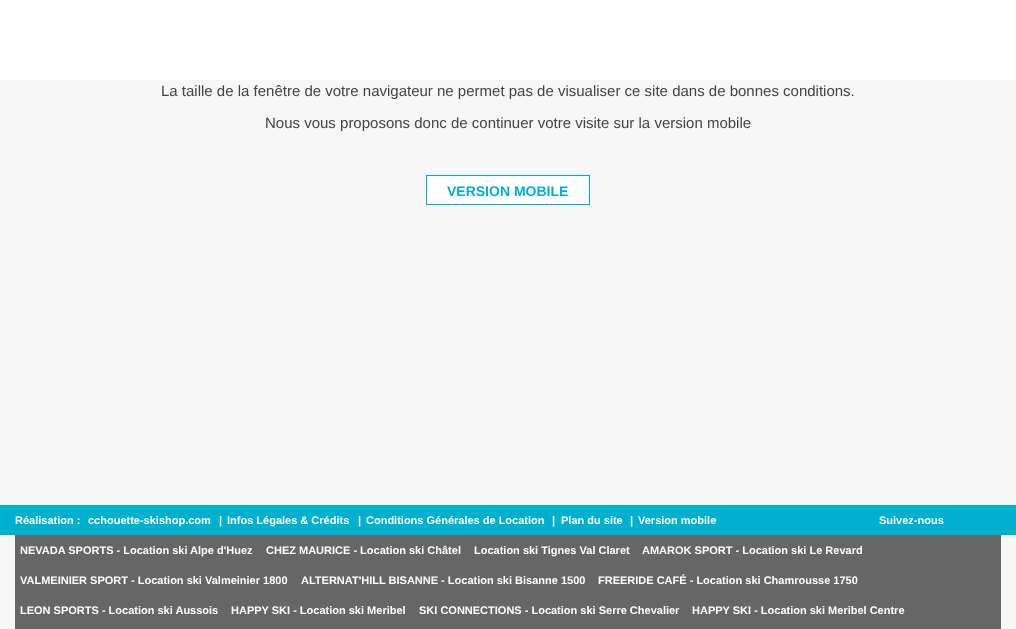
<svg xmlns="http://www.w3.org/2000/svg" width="1016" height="629">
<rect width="100%" height="100%" fill="#f7f7f7"/>
<rect width="1016" height="80" fill="#fff"/>
<text x="161" y="96" style="font-family:Liberation Sans;font-size:15px;fill:#444">La taille de la fenêtre de votre navigateur ne permet pas de visualiser ce site dans de bonnes conditions.</text>
<text x="265" y="128" style="font-family:Liberation Sans;font-size:15px;fill:#444">Nous vous proposons donc de continuer votre visite sur la version mobile</text>
<rect x="426.5" y="175.5" width="163" height="29" fill="#fff" stroke="#00b1cf"/>
<text x="447" y="196" style="font-family:Liberation Sans;font-size:14px;font-weight:bold;fill:#00b1cf">VERSION MOBILE</text>
<rect y="505" width="1016" height="30" fill="#00b1cf"/>
<text x="15" y="524" style="font-family:Liberation Sans;font-size:11px;font-weight:bold;fill:#fff">Réalisation :</text>
<text x="88" y="524" style="font-family:Liberation Sans;font-size:11px;font-weight:bold;fill:#fff">cchouette-skishop.com</text>
<text x="219" y="524" style="font-family:Liberation Sans;font-size:11px;font-weight:bold;fill:#fff">|</text>
<text x="227" y="524" style="font-family:Liberation Sans;font-size:11px;font-weight:bold;fill:#fff">Infos Légales &amp; Crédits</text>
<text x="358" y="524" style="font-family:Liberation Sans;font-size:11px;font-weight:bold;fill:#fff">|</text>
<text x="366" y="524" style="font-family:Liberation Sans;font-size:11px;font-weight:bold;fill:#fff">Conditions Générales de Location</text>
<text x="552" y="524" style="font-family:Liberation Sans;font-size:11px;font-weight:bold;fill:#fff">|</text>
<text x="561" y="524" style="font-family:Liberation Sans;font-size:11px;font-weight:bold;fill:#fff">Plan du site</text>
<text x="630" y="524" style="font-family:Liberation Sans;font-size:11px;font-weight:bold;fill:#fff">|</text>
<text x="638" y="524" style="font-family:Liberation Sans;font-size:11px;font-weight:bold;fill:#fff">Version mobile</text>
<text x="879" y="524" style="font-family:Liberation Sans;font-size:11px;font-weight:bold;fill:#fff">Suivez-nous</text>
<rect x="15" y="535" width="986" height="94" fill="#666"/>
<text x="20" y="554" style="font-family:Liberation Sans;font-size:11px;font-weight:bold;fill:#fff">NEVADA SPORTS - Location ski Alpe d'Huez</text>
<text x="266" y="554" style="font-family:Liberation Sans;font-size:11px;font-weight:bold;fill:#fff">CHEZ MAURICE - Location ski Châtel</text>
<text x="474" y="554" style="font-family:Liberation Sans;font-size:11px;font-weight:bold;fill:#fff">Location ski Tignes Val Claret</text>
<text x="642" y="554" style="font-family:Liberation Sans;font-size:11px;font-weight:bold;fill:#fff">AMAROK SPORT - Location ski Le Revard</text>
<text x="20" y="584" style="font-family:Liberation Sans;font-size:11px;font-weight:bold;fill:#fff">VALMEINIER SPORT - Location ski Valmeinier 1800</text>
<text x="301" y="584" style="font-family:Liberation Sans;font-size:11px;font-weight:bold;fill:#fff">ALTERNAT'HILL BISANNE - Location ski Bisanne 1500</text>
<text x="598" y="584" style="font-family:Liberation Sans;font-size:11px;font-weight:bold;fill:#fff">FREERIDE CAFÉ - Location ski Chamrousse 1750</text>
<text x="20" y="614" style="font-family:Liberation Sans;font-size:11px;font-weight:bold;fill:#fff">LEON SPORTS - Location ski Aussois</text>
<text x="231" y="614" style="font-family:Liberation Sans;font-size:11px;font-weight:bold;fill:#fff">HAPPY SKI - Location ski Meribel</text>
<text x="419" y="614" style="font-family:Liberation Sans;font-size:11px;font-weight:bold;fill:#fff">SKI CONNECTIONS - Location ski Serre Chevalier</text>
<text x="692" y="614" style="font-family:Liberation Sans;font-size:11px;font-weight:bold;fill:#fff">HAPPY SKI - Location ski Meribel Centre</text>
</svg>
